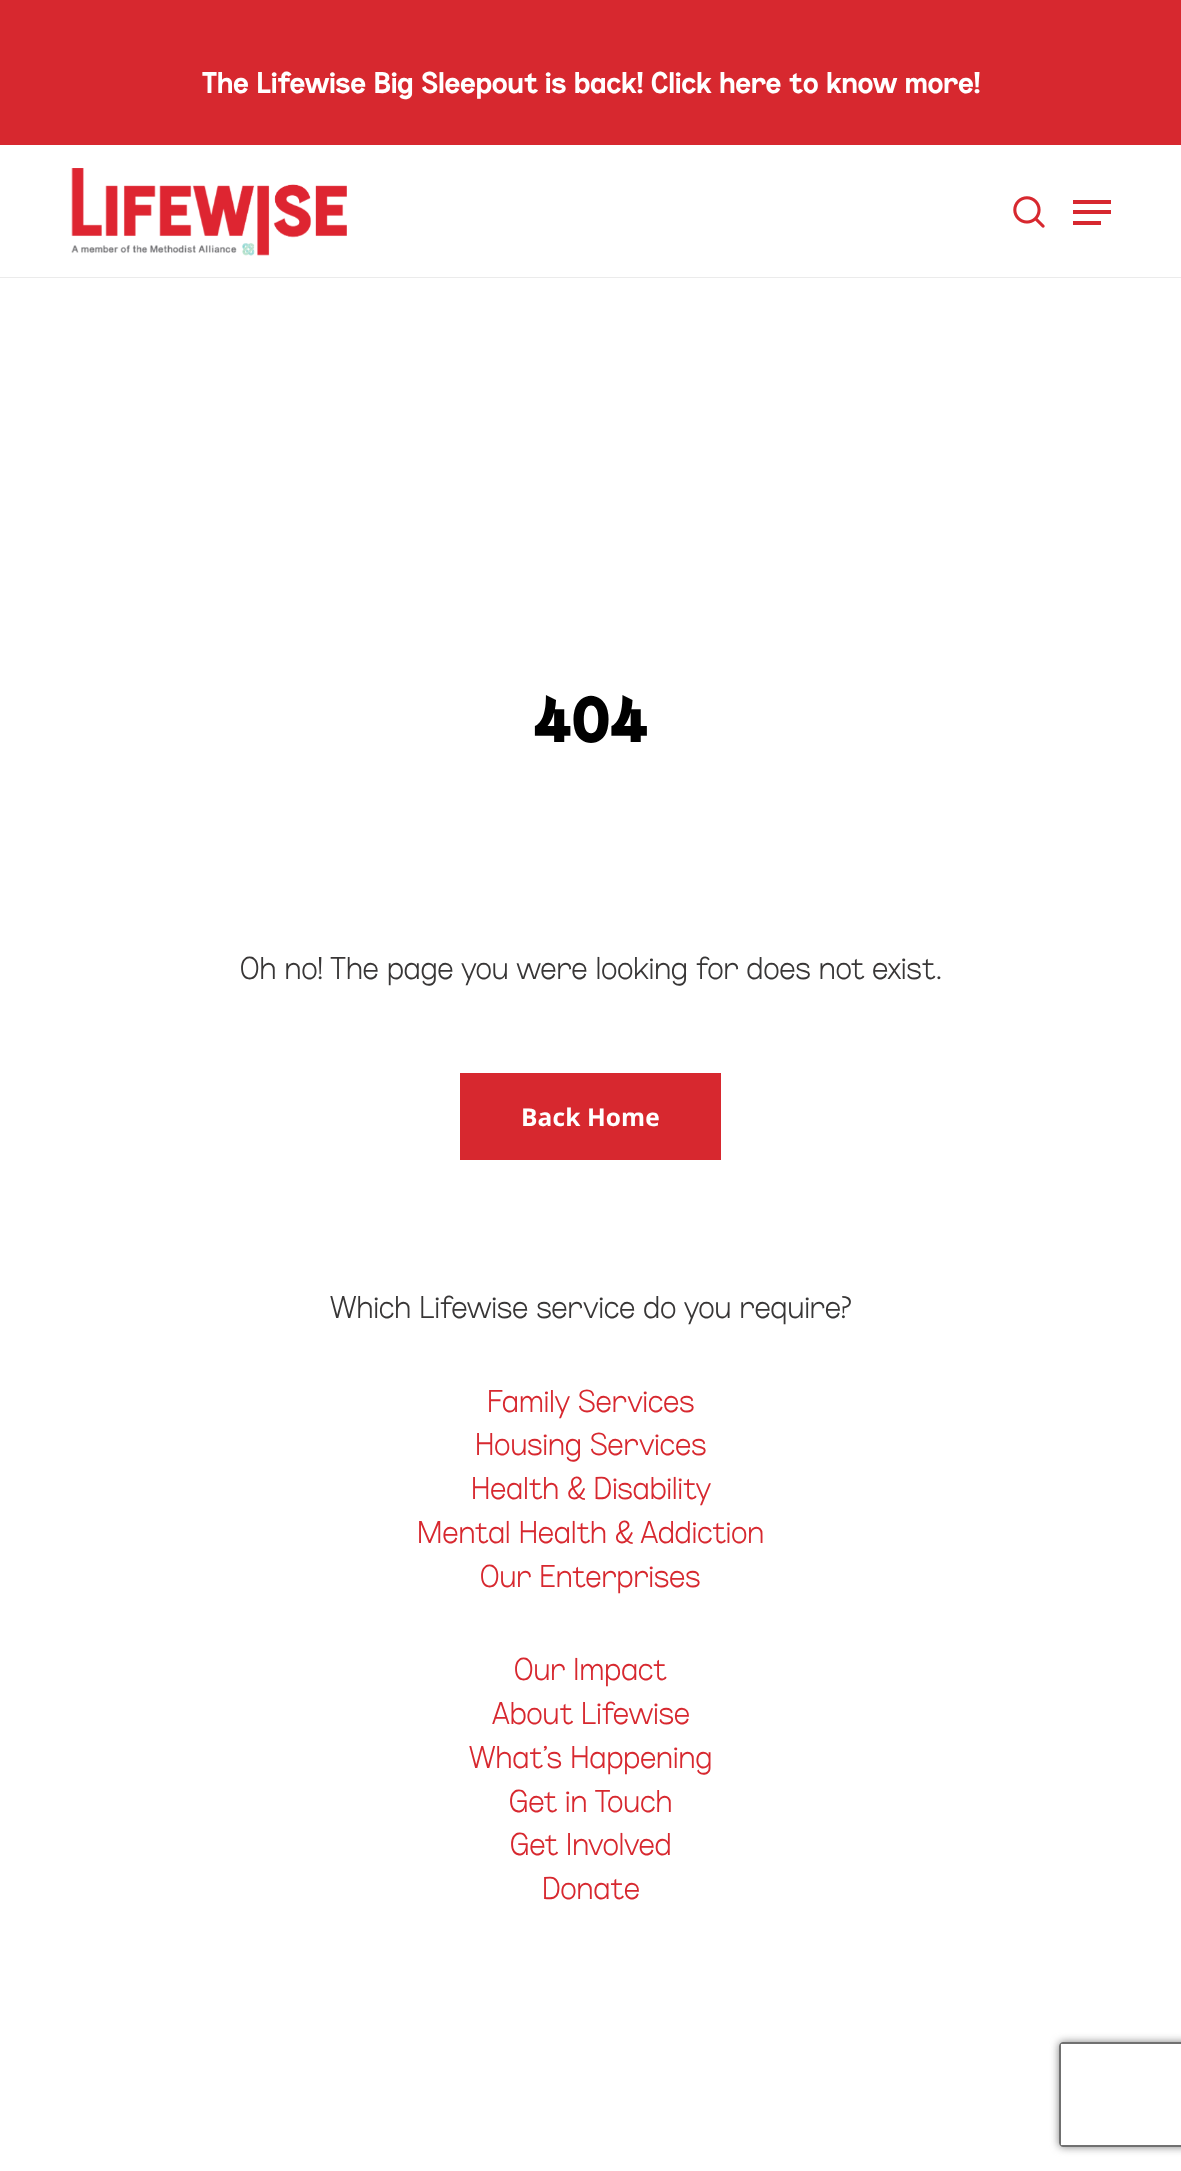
<svg xmlns="http://www.w3.org/2000/svg" width="1181" height="2171">
<defs>
<clipPath id="clip1"><path d="M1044 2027h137v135h-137zm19 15h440c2 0 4 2 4 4v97c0 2-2 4-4 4h-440c-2 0-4-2-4-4v-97c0-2 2-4 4-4z" clip-rule="evenodd"/></clipPath>
</defs>
<rect width="100%" height="100%" fill="#fff"/>
<rect y="277" width="1181" height="1" fill="#ebebeb"/>
<rect width="1181" height="145" fill="#d7282f"/>
<text x="202" y="93" style="font-family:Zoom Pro;font-size:31.5px;font-weight:500;letter-spacing:0.1px;fill:#fff">The Lifewise Big Sleepout is back! Click here to know more!</text>
<image x="71" y="168" width="276" height="88" href="media/1.png"/>
<image x="1013" y="196" width="32" height="32" href="media/2.png"/>
<rect x="1073" y="200" width="38" height="4" fill="#d7282f"/>
<rect x="1073" y="221" width="28" height="4" fill="#d7282f"/>
<rect x="1073" y="210" width="38" height="4" fill="#d7282f"/>
<text x="534" y="742" style="font-family:Zoom Pro;font-size:68px;font-weight:bold;fill:#000">404</text>
<text x="240" y="979" style="font-family:Zoom Pro;font-size:33.25px;font-weight:300;letter-spacing:0.1px;fill:#383636">Oh no! The page you were looking for does not exist.</text>
<rect x="460" y="1073" width="261" height="87" fill="#d7282f"/>
<text x="521" y="1126" style="font-family:Open Sans;font-size:24.5px;font-weight:bold;letter-spacing:0.1px;fill:#fff">Back Home</text>
<text x="330" y="1318" style="font-family:Zoom Pro;font-size:33.25px;font-weight:300;letter-spacing:0.1px;fill:#383636">Which Lifewise service do you require?</text>
<text x="487" y="1412" style="font-family:Zoom Pro;font-size:33.25px;font-weight:300;letter-spacing:0.1px;fill:#d7282f">Family Services</text>
<text x="475" y="1455" style="font-family:Zoom Pro;font-size:33.25px;font-weight:300;letter-spacing:0.1px;fill:#d7282f">Housing Services</text>
<text x="471" y="1499" style="font-family:Zoom Pro;font-size:33.25px;font-weight:300;letter-spacing:0.1px;fill:#d7282f">Health &amp; Disability</text>
<text x="417" y="1543" style="font-family:Zoom Pro;font-size:33.25px;font-weight:300;letter-spacing:0.1px;fill:#d7282f">Mental Health &amp; Addiction</text>
<text x="480" y="1587" style="font-family:Zoom Pro;font-size:33.25px;font-weight:300;letter-spacing:0.1px;fill:#d7282f">Our Enterprises</text>
<text x="514" y="1680" style="font-family:Zoom Pro;font-size:33.25px;font-weight:300;letter-spacing:0.1px;fill:#d7282f">Our Impact</text>
<text x="492" y="1724" style="font-family:Zoom Pro;font-size:33.25px;font-weight:300;letter-spacing:0.1px;fill:#d7282f">About Lifewise</text>
<text x="469" y="1768" style="font-family:Zoom Pro;font-size:33.25px;font-weight:300;letter-spacing:0.1px;fill:#d7282f">What’s Happening</text>
<text x="509" y="1812" style="font-family:Zoom Pro;font-size:33.25px;font-weight:300;letter-spacing:0.1px;fill:#d7282f">Get in Touch</text>
<text x="510" y="1855" style="font-family:Zoom Pro;font-size:33.25px;font-weight:300;letter-spacing:0.1px;fill:#d7282f">Get Involved</text>
<text x="542" y="1899" style="font-family:Zoom Pro;font-size:33.25px;font-weight:300;letter-spacing:0.1px;fill:#d7282f">Donate</text>
<g clip-path="url(#clip1)">
<rect x="1059" y="2042" width="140" height="105" rx="4" fill="#808080" filter="blur(4.5px)"/>
</g>
<path d="M1063 2042c-2 0-4 2-4 4v97c0 2 2 4 4 4h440c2 0 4-2 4-4v-97c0-2-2-4-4-4zm-2 2v101h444v-101z" fill="#707070" fill-rule="evenodd"/>
</svg>
